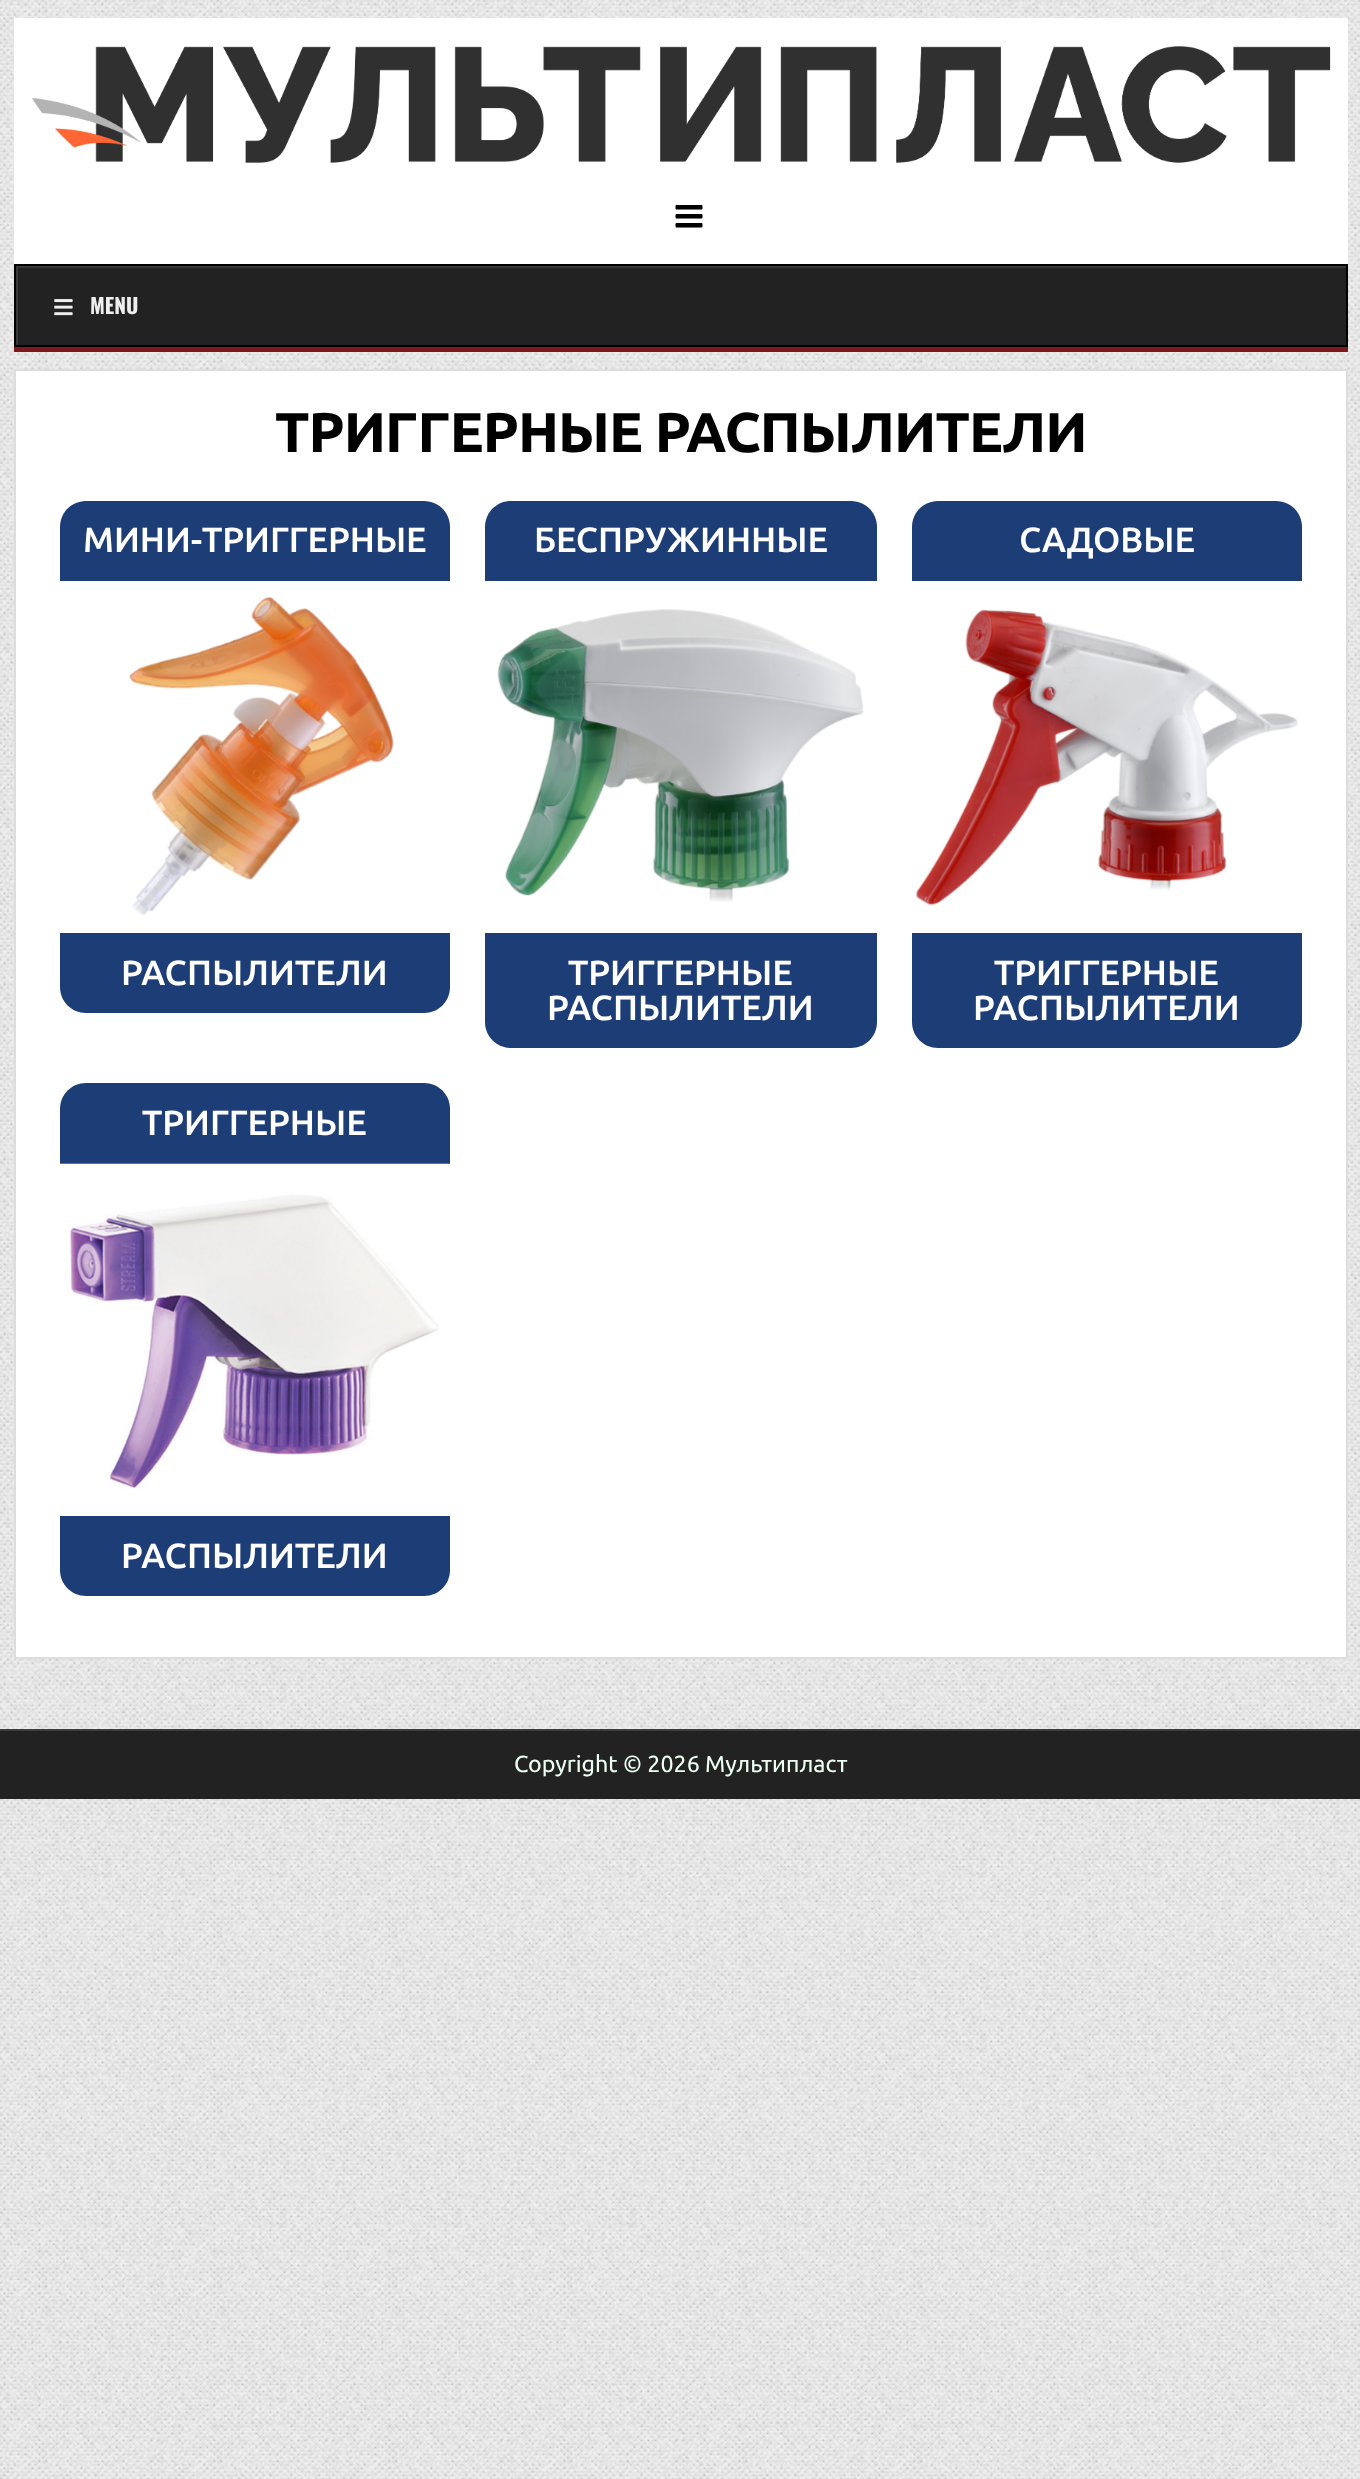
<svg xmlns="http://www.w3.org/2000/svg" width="1360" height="2479">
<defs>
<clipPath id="clip1"><rect x="16" y="266" width="1330" height="79"/></clipPath>
</defs>
<rect width="100%" height="100%" fill="#fff"/>
<image x="0" y="0" width="1360" height="2479" href="media/1.png"/>
<rect x="14" y="18" width="1334" height="246" fill="#fff"/>
<image x="32" y="46" width="1299" height="117" href="media/2.png"/>
<image x="675" y="205" width="28" height="23" href="media/3.png"/>
<rect x="14" y="347" width="1334" height="5" fill="#7f181b"/>
<rect x="18" y="268" width="1328" height="77" fill="#222"/>
<g clip-path="url(#clip1)">
<path d="M-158 93h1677v425h-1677zm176 175h1330v78h-1330z" fill="#383838" fill-rule="evenodd"/>
</g>
<rect x="15" y="265" width="1332" height="81" fill="none" stroke="#000" stroke-width="2"/>
<image x="54" y="299" width="19" height="17" href="media/4.png"/>
<text x="90" y="314" style="font-family:Oswald;font-size:21px;font-weight:bold;fill:#eee">MENU</text>
<rect x="15" y="370" width="1332" height="1288" fill="#fff" stroke="#ddd" stroke-width="2"/>
<text x="275" y="452" style="font-family:Ubuntu;font-size:56px;font-weight:bold;letter-spacing:-0.9px;fill:#000">ТРИГГЕРНЫЕ РАСПЫЛИТЕЛИ</text>
<path d="M86 501h338c14.5 0 26 11.5 26 26v54h-390v-54c0-14.5 11.5-26 26-26z" fill="#1d3d77"/>
<text x="83" y="552" style="font-family:Ubuntu;font-size:35px;font-weight:500;fill:#fff">МИНИ-ТРИГГЕРНЫЕ</text>
<image x="129" y="596" width="265" height="320" href="media/5.png"/>
<path d="M60 933h390v54c0 14.5-11.5 26-26 26h-338c-14.5 0-26-11.5-26-26z" fill="#1d3d77"/>
<text x="121" y="985" style="font-family:Ubuntu;font-size:35px;font-weight:500;fill:#fff">РАСПЫЛИТЕЛИ</text>
<path d="M511 501h340c14.5 0 26 11.5 26 26v54h-392v-54c0-14.5 11.5-26 26-26z" fill="#1d3d77"/>
<text x="534" y="552" style="font-family:Ubuntu;font-size:35px;font-weight:500;fill:#fff">БЕСПРУЖИННЫЕ</text>
<image x="497" y="609" width="367" height="293" href="media/6.png"/>
<path d="M485 933h392v89c0 14.5-11.5 26-26 26h-340c-14.5 0-26-11.5-26-26z" fill="#1d3d77"/>
<text x="568" y="985" style="font-family:Ubuntu;font-size:35px;font-weight:500;fill:#fff">ТРИГГЕРНЫЕ</text>
<text x="547" y="1020" style="font-family:Ubuntu;font-size:35px;font-weight:500;fill:#fff">РАСПЫЛИТЕЛИ</text>
<path d="M938 501h338c14.5 0 26 11.5 26 26v54h-390v-54c0-14.5 11.5-26 26-26z" fill="#1d3d77"/>
<text x="1019" y="552" style="font-family:Ubuntu;font-size:35px;font-weight:500;fill:#fff">САДОВЫЕ</text>
<image x="915" y="609" width="383" height="297" href="media/7.png"/>
<path d="M912 933h390v89c0 14.5-11.5 26-26 26h-338c-14.5 0-26-11.5-26-26z" fill="#1d3d77"/>
<text x="994" y="985" style="font-family:Ubuntu;font-size:35px;font-weight:500;fill:#fff">ТРИГГЕРНЫЕ</text>
<text x="973" y="1020" style="font-family:Ubuntu;font-size:35px;font-weight:500;fill:#fff">РАСПЫЛИТЕЛИ</text>
<path d="M86 1083h338c14.5 0 26 11.5 26 26v55h-390v-55c0-14.5 11.5-26 26-26z" fill="#1d3d77"/>
<text x="142" y="1135" style="font-family:Ubuntu;font-size:35px;font-weight:500;fill:#fff">ТРИГГЕРНЫЕ</text>
<image x="60" y="1163" width="390" height="326" href="media/8.png"/>
<path d="M60 1516h390v54c0 14.5-11.5 26-26 26h-338c-14.5 0-26-11.5-26-26z" fill="#1d3d77"/>
<text x="121" y="1568" style="font-family:Ubuntu;font-size:35px;font-weight:500;fill:#fff">РАСПЫЛИТЕЛИ</text>
<rect y="1731" width="1360" height="68" fill="#222"/>
<rect y="1729" width="1360" height="2" fill="#3d3d3d"/>
<text x="514" y="1772" style="font-family:Ubuntu;font-size:23.25px;fill:#ecfff1">Copyright © 2026 Мультипласт</text>
</svg>
